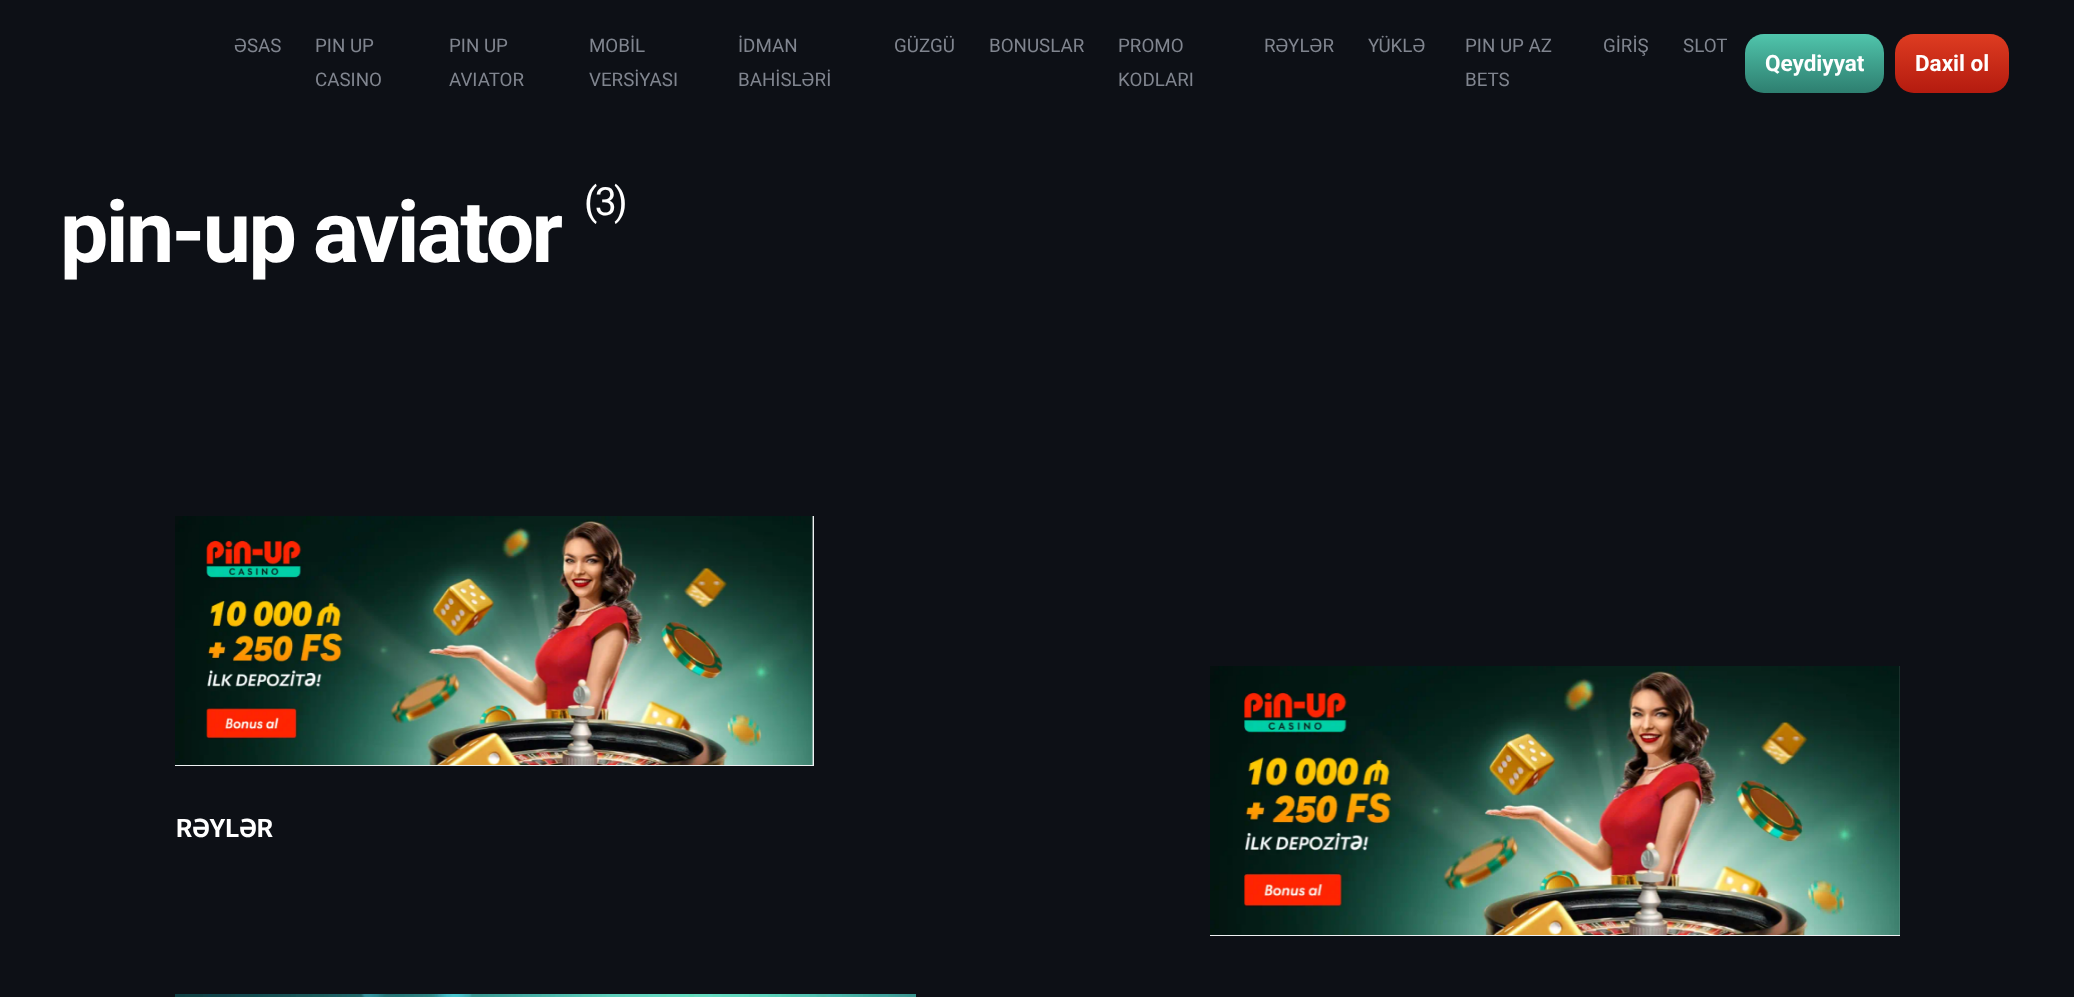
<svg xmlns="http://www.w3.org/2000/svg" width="2074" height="997">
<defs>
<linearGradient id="g1" gradientUnits="userSpaceOnUse" x1="1814" y1="34" x2="1814" y2="93"><stop offset="0" stop-color="#50c5ac"/><stop offset="0.5" stop-color="#3fa18d"/><stop offset="1" stop-color="#2e7f70"/></linearGradient>
<linearGradient id="g2" gradientUnits="userSpaceOnUse" x1="1952" y1="34" x2="1952" y2="93"><stop offset="0" stop-color="#de3c21"/><stop offset="1" stop-color="#b41b0f"/></linearGradient>
</defs>
<rect width="100%" height="100%" fill="#0d1016"/>
<text x="234" y="52" style="font-family:Roboto;font-size:18.75px;fill:#80858f">ƏSAS</text>
<text x="315" y="52" style="font-family:Roboto;font-size:18.75px;fill:#80858f">PIN UP</text>
<text x="315" y="86" style="font-family:Roboto;font-size:18.75px;fill:#80858f">CASINO</text>
<text x="449" y="52" style="font-family:Roboto;font-size:18.75px;fill:#80858f">PIN UP</text>
<text x="449" y="86" style="font-family:Roboto;font-size:18.75px;fill:#80858f">AVIATOR</text>
<text x="589" y="52" style="font-family:Roboto;font-size:18.75px;fill:#80858f">MOBİL</text>
<text x="589" y="86" style="font-family:Roboto;font-size:18.75px;fill:#80858f">VERSİYASI</text>
<text x="738" y="52" style="font-family:Roboto;font-size:18.75px;fill:#80858f">İDMAN</text>
<text x="738" y="86" style="font-family:Roboto;font-size:18.75px;fill:#80858f">BAHİSLƏRİ</text>
<text x="894" y="52" style="font-family:Roboto;font-size:18.75px;fill:#80858f">GÜZGÜ</text>
<text x="989" y="52" style="font-family:Roboto;font-size:18.75px;fill:#80858f">BONUSLAR</text>
<text x="1118" y="52" style="font-family:Roboto;font-size:18.75px;fill:#80858f">PROMO</text>
<text x="1118" y="86" style="font-family:Roboto;font-size:18.75px;fill:#80858f">KODLARI</text>
<text x="1264" y="52" style="font-family:Roboto;font-size:18.75px;fill:#80858f">RƏYLƏR</text>
<text x="1368" y="52" style="font-family:Roboto;font-size:18.75px;fill:#80858f">YÜKLƏ</text>
<text x="1465" y="52" style="font-family:Roboto;font-size:18.75px;fill:#80858f">PIN UP AZ</text>
<text x="1465" y="86" style="font-family:Roboto;font-size:18.75px;fill:#80858f">BETS</text>
<text x="1603" y="52" style="font-family:Roboto;font-size:18.75px;fill:#80858f">GİRİŞ</text>
<text x="1683" y="52" style="font-family:Roboto;font-size:18.75px;fill:#80858f">SLOT</text>
<rect x="1745" y="34" width="139" height="59" rx="19" fill="url(#g1)"/>
<text x="1765" y="71" style="font-family:Roboto;font-size:22.5px;font-weight:bold;fill:#fff">Qeydiyyat</text>
<rect x="1895" y="34" width="114" height="59" rx="19" fill="url(#g2)"/>
<text x="1915" y="71" style="font-family:Roboto;font-size:22.5px;font-weight:bold;fill:#fff">Daxil ol</text>
<text x="60" y="262" style="font-family:Roboto;font-size:86px;font-weight:bold;letter-spacing:-2.6px;fill:#fff">pin-up aviator</text>
<text x="584" y="215" style="font-family:Roboto;font-size:39px;letter-spacing:-2.6px;fill:#fff">(3)</text>
<rect x="175" y="516" width="639" height="250" fill="#eef1f2"/>
<image x="175" y="516" width="638" height="249" href="media/1.png"/>
<text x="176" y="837" style="font-family:Roboto;font-size:25.5px;font-weight:bold;fill:#fff">RƏYLƏR</text>
<rect x="1210" y="666" width="690" height="270" fill="#eef1f2"/>
<image x="1210" y="666" width="690" height="269" href="media/2.png"/>
<image x="175" y="994" width="741" height="3" href="media/3.png"/>
</svg>
